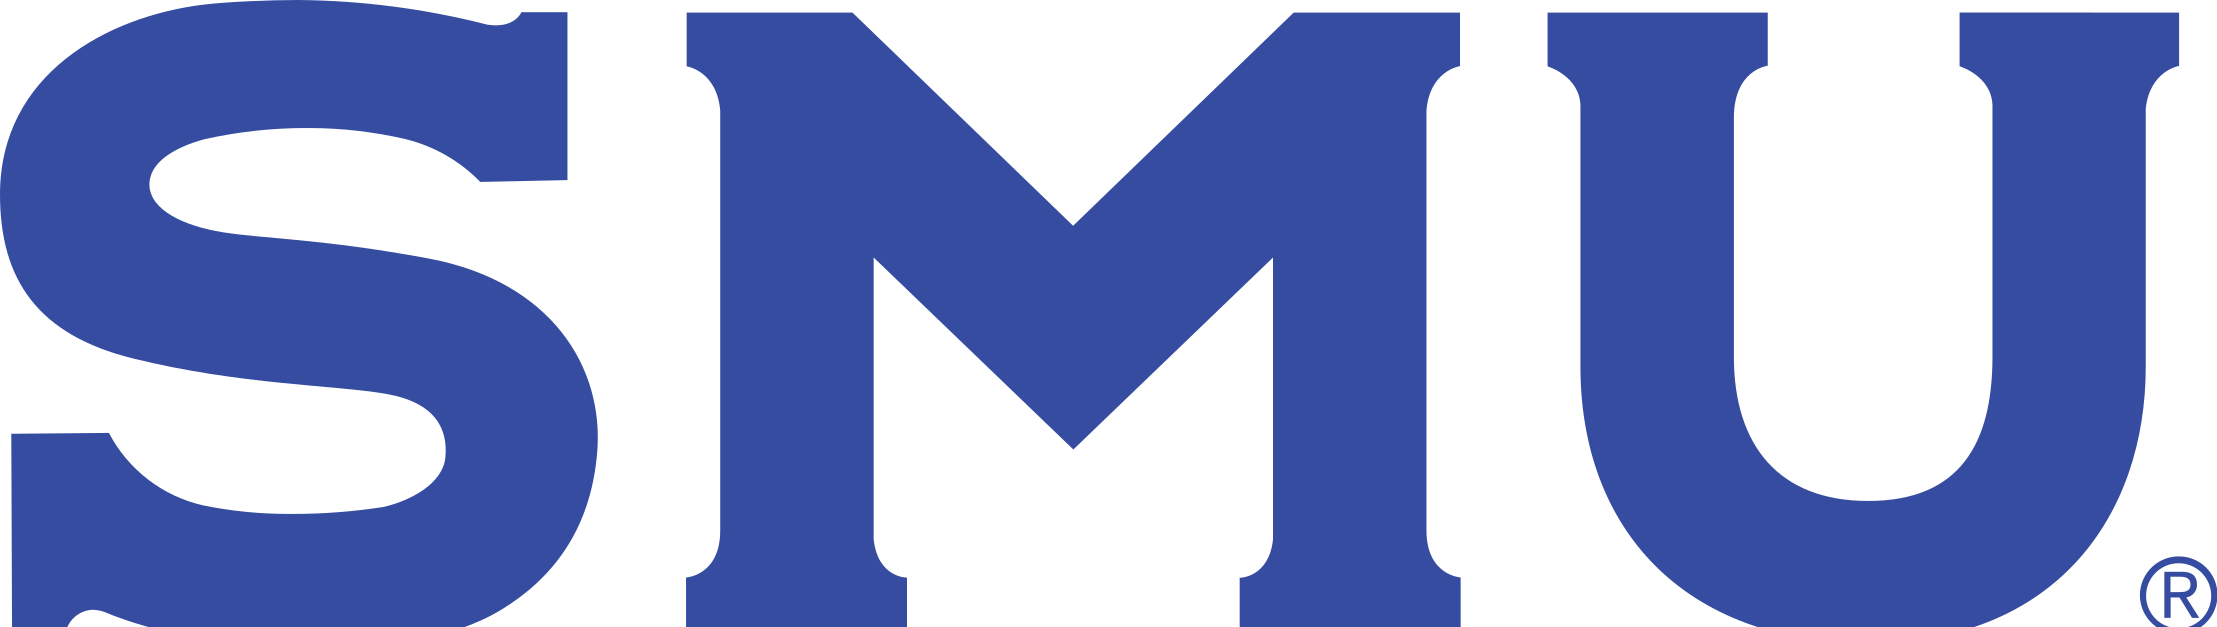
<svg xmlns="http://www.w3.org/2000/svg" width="2217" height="627">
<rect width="100%" height="100%" fill="#fff"/>
<image x="0" y="0" width="2217" height="627" href="media/1.png"/>
</svg>
